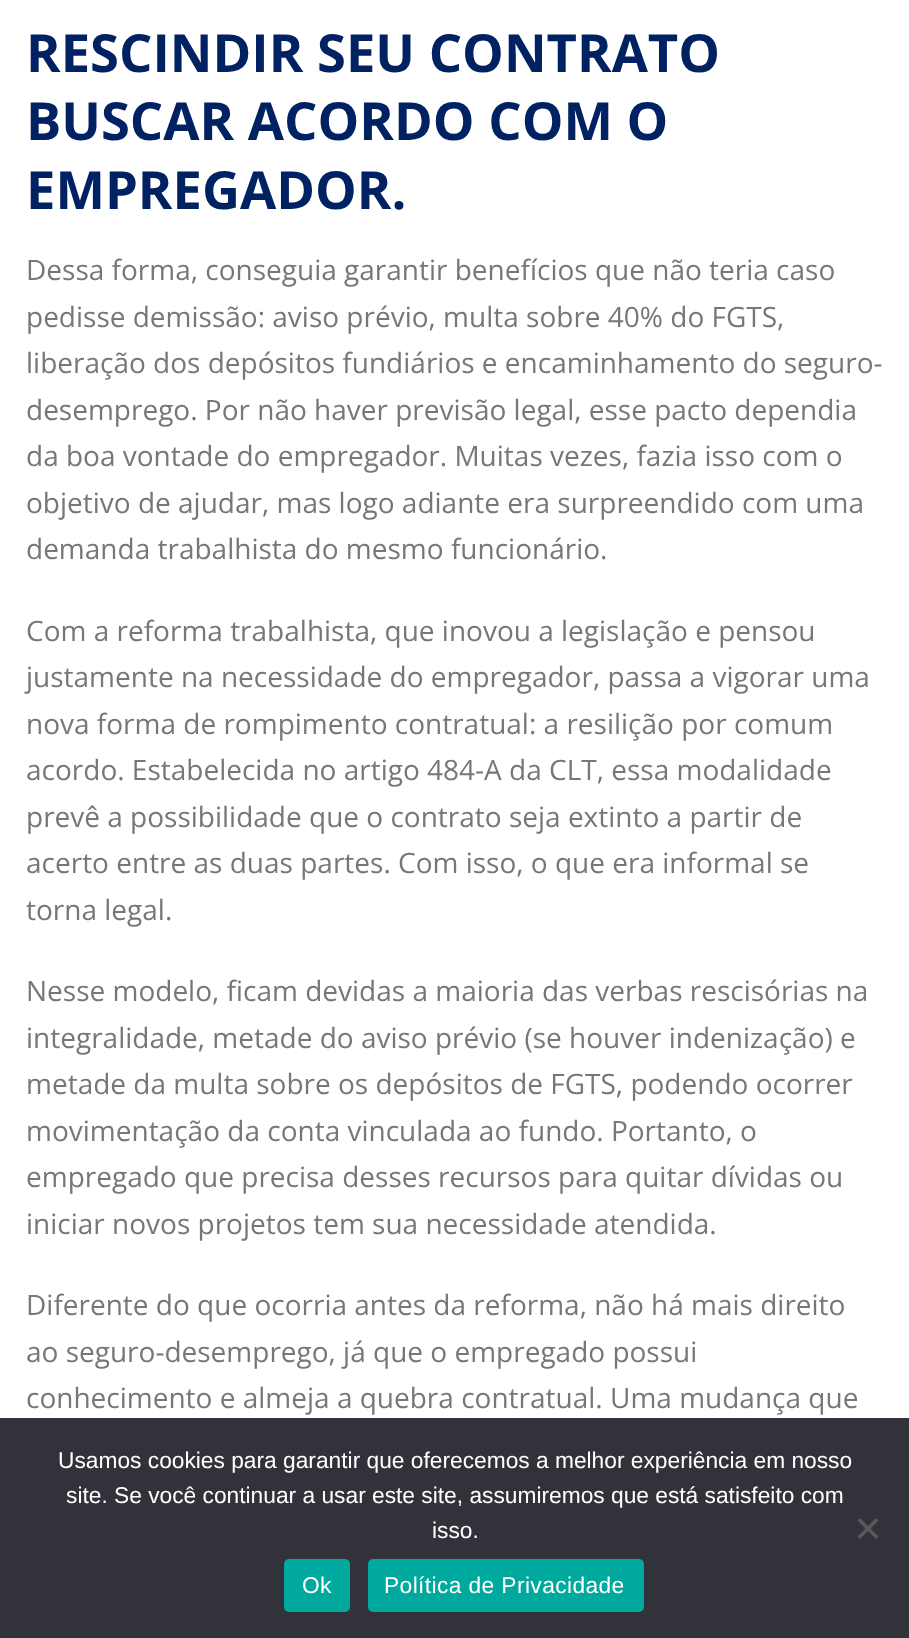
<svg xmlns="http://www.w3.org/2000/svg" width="909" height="1638">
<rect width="100%" height="100%" fill="#fff"/>
<text x="26" y="72" style="font-family:Open Sans;font-size:52.5px;font-weight:bold;fill:#002262">RESCINDIR SEU CONTRATO</text>
<text x="26" y="140" style="font-family:Open Sans;font-size:52.5px;font-weight:bold;fill:#002262">BUSCAR ACORDO COM O</text>
<text x="26" y="209" style="font-family:Open Sans;font-size:52.5px;font-weight:bold;fill:#002262">EMPREGADOR.</text>
<text x="26" y="280" style="font-family:Open Sans;font-size:28px;fill:#777">Dessa forma, conseguia garantir benefícios que não teria caso</text>
<text x="26" y="327" style="font-family:Open Sans;font-size:28px;fill:#777">pedisse demissão: aviso prévio, multa sobre 40% do FGTS,</text>
<text x="26" y="373" style="font-family:Open Sans;font-size:28px;fill:#777">liberação dos depósitos fundiários e encaminhamento do seguro-</text>
<text x="26" y="420" style="font-family:Open Sans;font-size:28px;fill:#777">desemprego. Por não haver previsão legal, esse pacto dependia</text>
<text x="26" y="466" style="font-family:Open Sans;font-size:28px;fill:#777">da boa vontade do empregador. Muitas vezes, fazia isso com o</text>
<text x="26" y="513" style="font-family:Open Sans;font-size:28px;fill:#777">objetivo de ajudar, mas logo adiante era surpreendido com uma</text>
<text x="26" y="559" style="font-family:Open Sans;font-size:28px;fill:#777">demanda trabalhista do mesmo funcionário.</text>
<text x="26" y="641" style="font-family:Open Sans;font-size:28px;fill:#777">Com a reforma trabalhista, que inovou a legislação e pensou</text>
<text x="26" y="687" style="font-family:Open Sans;font-size:28px;fill:#777">justamente na necessidade do empregador, passa a vigorar uma</text>
<text x="26" y="734" style="font-family:Open Sans;font-size:28px;fill:#777">nova forma de rompimento contratual: a resilição por comum</text>
<text x="26" y="780" style="font-family:Open Sans;font-size:28px;fill:#777">acordo. Estabelecida no artigo 484-A da CLT, essa modalidade</text>
<text x="26" y="827" style="font-family:Open Sans;font-size:28px;fill:#777">prevê a possibilidade que o contrato seja extinto a partir de</text>
<text x="26" y="873" style="font-family:Open Sans;font-size:28px;fill:#777">acerto entre as duas partes. Com isso, o que era informal se</text>
<text x="26" y="920" style="font-family:Open Sans;font-size:28px;fill:#777">torna legal.</text>
<text x="26" y="1001" style="font-family:Open Sans;font-size:28px;fill:#777">Nesse modelo, ficam devidas a maioria das verbas rescisórias na</text>
<text x="26" y="1048" style="font-family:Open Sans;font-size:28px;fill:#777">integralidade, metade do aviso prévio (se houver indenização) e</text>
<text x="26" y="1094" style="font-family:Open Sans;font-size:28px;fill:#777">metade da multa sobre os depósitos de FGTS, podendo ocorrer</text>
<text x="26" y="1141" style="font-family:Open Sans;font-size:28px;fill:#777">movimentação da conta vinculada ao fundo. Portanto, o</text>
<text x="26" y="1187" style="font-family:Open Sans;font-size:28px;fill:#777">empregado que precisa desses recursos para quitar dívidas ou</text>
<text x="26" y="1234" style="font-family:Open Sans;font-size:28px;fill:#777">iniciar novos projetos tem sua necessidade atendida.</text>
<text x="26" y="1315" style="font-family:Open Sans;font-size:28px;fill:#777">Diferente do que ocorria antes da reforma, não há mais direito</text>
<text x="26" y="1362" style="font-family:Open Sans;font-size:28px;fill:#777">ao seguro-desemprego, já que o empregado possui</text>
<text x="26" y="1408" style="font-family:Open Sans;font-size:28px;fill:#777">conhecimento e almeja a quebra contratual. Uma mudança que</text>
<rect y="1418" width="909" height="220" fill="#32323a"/>
<text x="58" y="1468" style="font-family:Liberation Sans;font-size:22.75px;fill:#fff">Usamos cookies para garantir que oferecemos a melhor experiência em nosso</text>
<text x="66" y="1503" style="font-family:Liberation Sans;font-size:22.75px;fill:#fff">site. Se você continuar a usar este site, assumiremos que está satisfeito com</text>
<text x="432" y="1538" style="font-family:Liberation Sans;font-size:22.75px;fill:#fff">isso.</text>
<path d="M876 1518l2.5 2.5l-18.5 18.5l-2.5-2.5z" fill="#59595d"/>
<path d="M857.5 1520.5l2.5-2.5l18.5 18.5l-2.5 2.5z" fill="#59595d"/>
<rect x="284" y="1559" width="66" height="53" rx="5" fill="#00a99d"/>
<text x="302" y="1593" style="font-family:Liberation Sans;font-size:22.75px;letter-spacing:0.4px;fill:#fff">Ok</text>
<rect x="368" y="1559" width="276" height="53" rx="5" fill="#00a99d"/>
<text x="384" y="1593" style="font-family:Liberation Sans;font-size:22.75px;letter-spacing:0.4px;fill:#fff">Política de Privacidade</text>
</svg>
